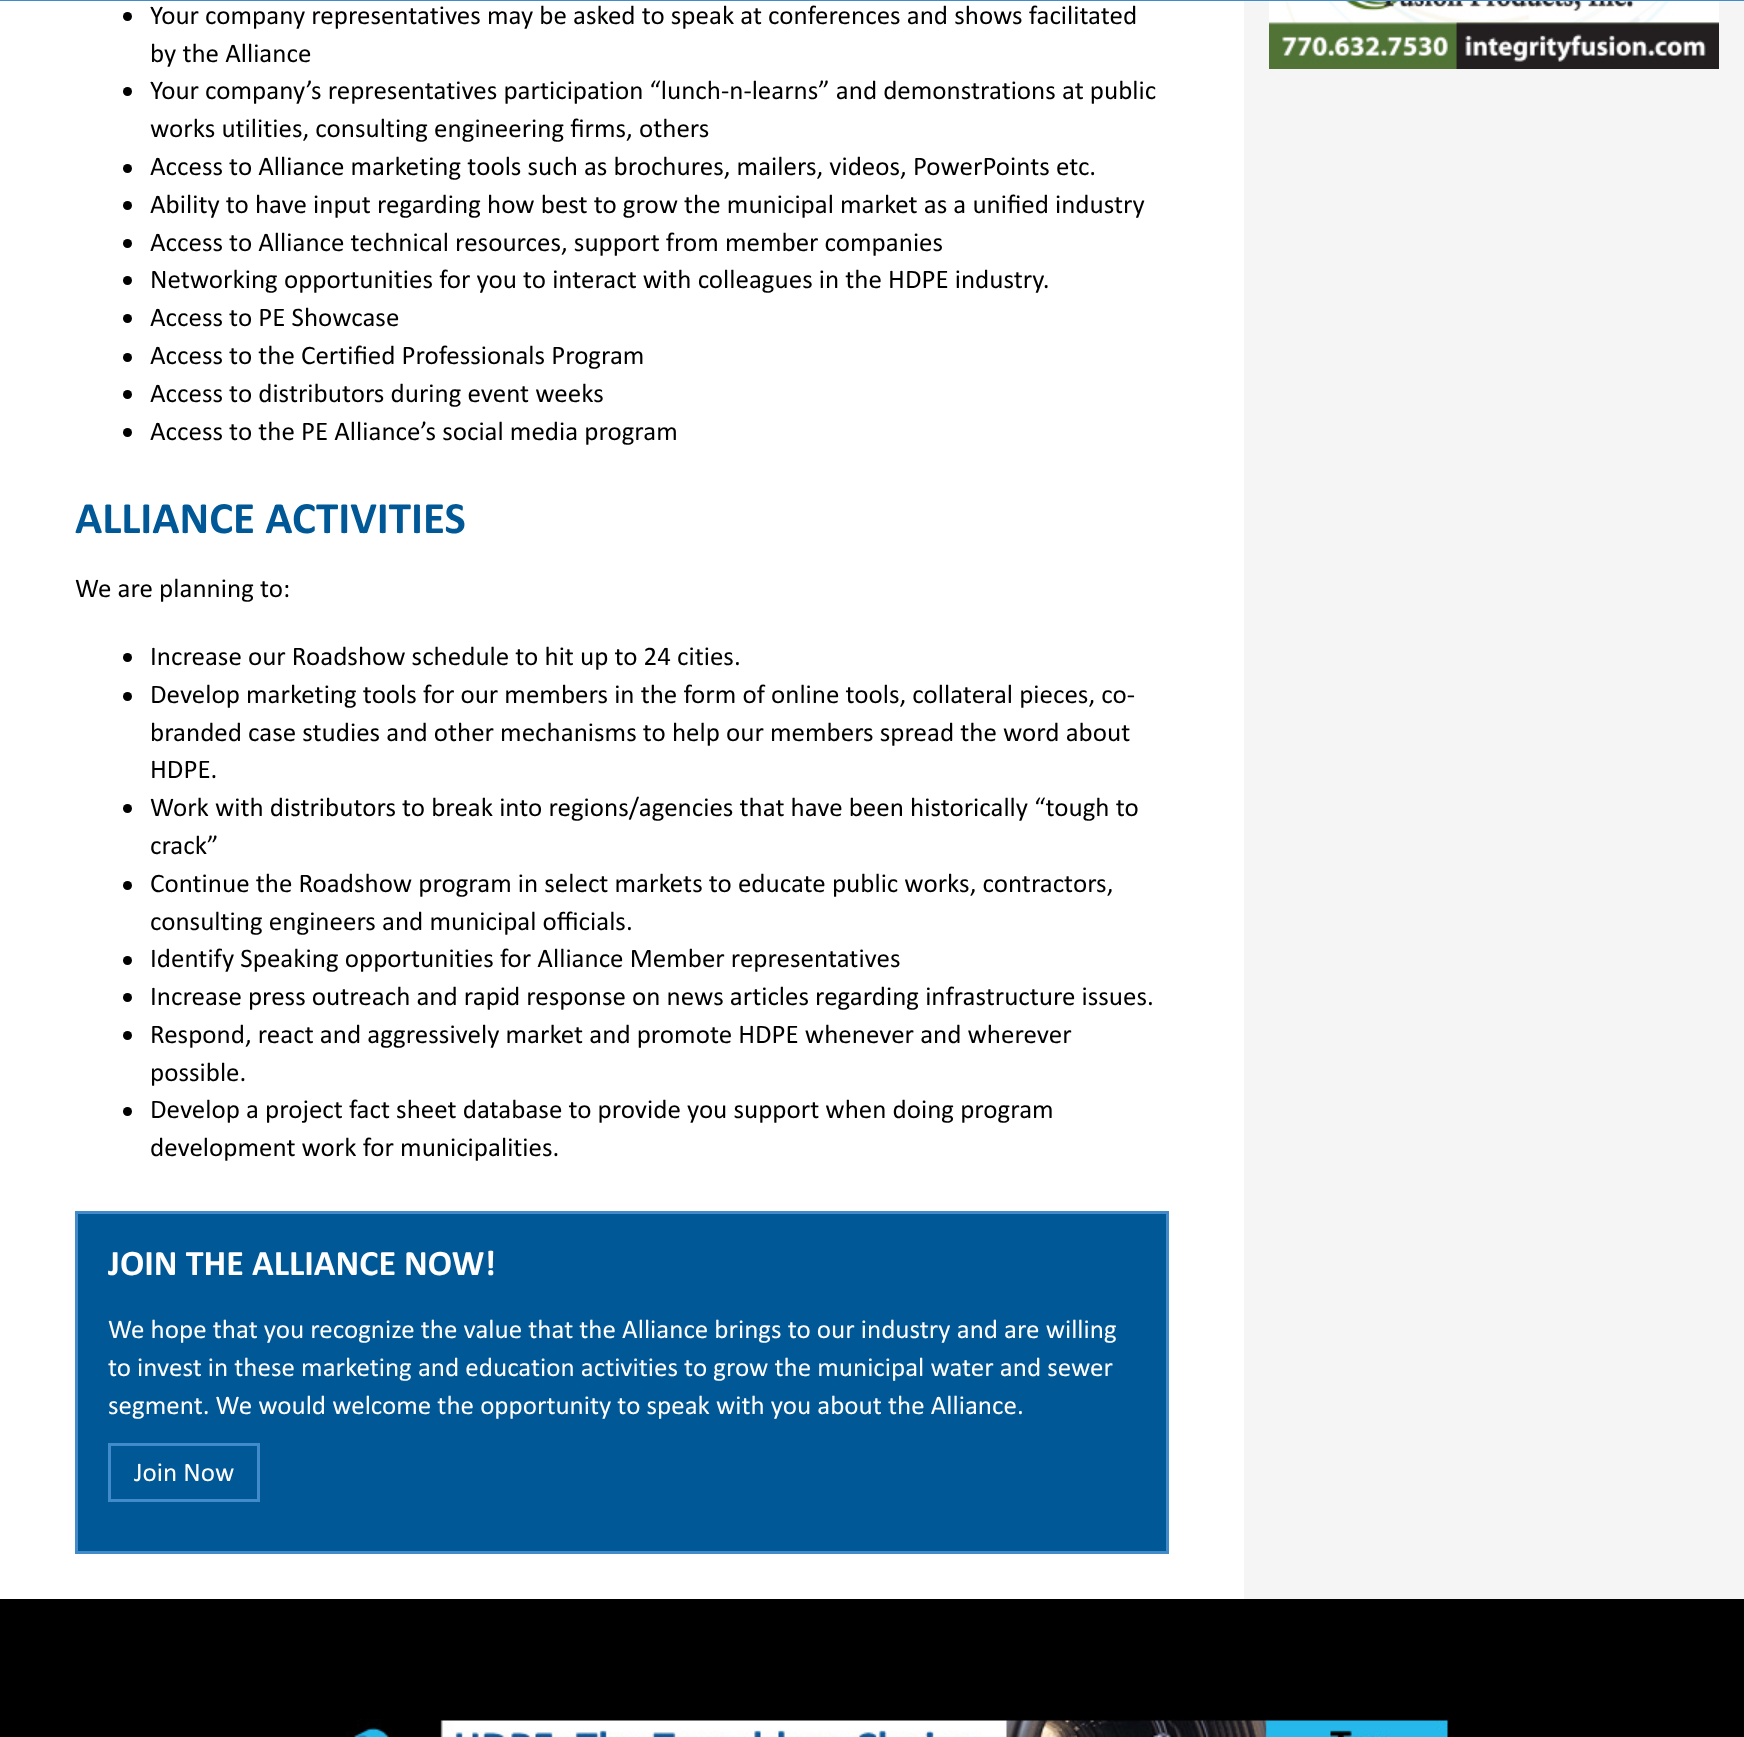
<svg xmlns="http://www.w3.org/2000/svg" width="1744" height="1737">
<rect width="100%" height="100%" fill="#fff"/>
<rect width="1744" height="1" fill="#428bca"/>
<circle cx="127.5" cy="16.5" r="4.5" fill="#000"/>
<text x="150" y="24" style="font-family:Calibri;font-size:27px;fill:#000">Your company representatives may be asked to speak at conferences and shows facilitated</text>
<text x="150" y="62" style="font-family:Calibri;font-size:27px;fill:#000">by the Alliance</text>
<circle cx="127.5" cy="91.5" r="4.5" fill="#000"/>
<text x="150" y="99" style="font-family:Calibri;font-size:27px;fill:#000">Your company’s representatives participation “lunch-n-learns” and demonstrations at public</text>
<text x="150" y="137" style="font-family:Calibri;font-size:27px;fill:#000">works utilities, consulting engineering firms, others</text>
<circle cx="127.5" cy="168.5" r="4.5" fill="#000"/>
<text x="150" y="175" style="font-family:Calibri;font-size:27px;fill:#000">Access to Alliance marketing tools such as brochures, mailers, videos, PowerPoints etc.</text>
<circle cx="127.5" cy="205.5" r="4.5" fill="#000"/>
<text x="150" y="213" style="font-family:Calibri;font-size:27px;fill:#000">Ability to have input regarding how best to grow the municipal market as a unified industry</text>
<circle cx="127.5" cy="243.5" r="4.5" fill="#000"/>
<text x="150" y="251" style="font-family:Calibri;font-size:27px;fill:#000">Access to Alliance technical resources, support from member companies</text>
<circle cx="127.5" cy="280.5" r="4.5" fill="#000"/>
<text x="150" y="288" style="font-family:Calibri;font-size:27px;fill:#000">Networking opportunities for you to interact with colleagues in the HDPE industry.</text>
<circle cx="127.5" cy="318.5" r="4.5" fill="#000"/>
<text x="150" y="326" style="font-family:Calibri;font-size:27px;fill:#000">Access to PE Showcase</text>
<circle cx="127.5" cy="357.5" r="4.5" fill="#000"/>
<text x="150" y="364" style="font-family:Calibri;font-size:27px;fill:#000">Access to the Certified Professionals Program</text>
<circle cx="127.5" cy="394.5" r="4.5" fill="#000"/>
<text x="150" y="402" style="font-family:Calibri;font-size:27px;fill:#000">Access to distributors during event weeks</text>
<circle cx="127.5" cy="432.5" r="4.5" fill="#000"/>
<text x="150" y="440" style="font-family:Calibri;font-size:27px;fill:#000">Access to the PE Alliance’s social media program</text>
<text x="75" y="533" style="font-family:Calibri;font-size:45px;font-weight:bold;fill:#005897">ALLIANCE ACTIVITIES</text>
<text x="75" y="597" style="font-family:Calibri;font-size:27px;fill:#000">We are planning to:</text>
<circle cx="127.5" cy="657.5" r="4.5" fill="#000"/>
<text x="150" y="665" style="font-family:Calibri;font-size:27px;fill:#000">Increase our Roadshow schedule to hit up to 24 cities.</text>
<circle cx="127.5" cy="696.5" r="4.5" fill="#000"/>
<text x="150" y="703" style="font-family:Calibri;font-size:27px;fill:#000">Develop marketing tools for our members in the form of online tools, collateral pieces, co-</text>
<text x="150" y="741" style="font-family:Calibri;font-size:27px;fill:#000">branded case studies and other mechanisms to help our members spread the word about</text>
<text x="150" y="778" style="font-family:Calibri;font-size:27px;fill:#000">HDPE.</text>
<circle cx="127.5" cy="808.5" r="4.5" fill="#000"/>
<text x="150" y="816" style="font-family:Calibri;font-size:27px;fill:#000">Work with distributors to break into regions/agencies that have been historically “tough to</text>
<text x="150" y="854" style="font-family:Calibri;font-size:27px;fill:#000">crack”</text>
<circle cx="127.5" cy="885.5" r="4.5" fill="#000"/>
<text x="150" y="892" style="font-family:Calibri;font-size:27px;fill:#000">Continue the Roadshow program in select markets to educate public works, contractors,</text>
<text x="150" y="930" style="font-family:Calibri;font-size:27px;fill:#000">consulting engineers and municipal officials.</text>
<circle cx="127.5" cy="960.5" r="4.5" fill="#000"/>
<text x="150" y="967" style="font-family:Calibri;font-size:27px;fill:#000">Identify Speaking opportunities for Alliance Member representatives</text>
<circle cx="127.5" cy="997.5" r="4.5" fill="#000"/>
<text x="150" y="1005" style="font-family:Calibri;font-size:27px;fill:#000">Increase press outreach and rapid response on news articles regarding infrastructure issues.</text>
<circle cx="127.5" cy="1035.5" r="4.5" fill="#000"/>
<text x="150" y="1043" style="font-family:Calibri;font-size:27px;fill:#000">Respond, react and aggressively market and promote HDPE whenever and wherever</text>
<text x="150" y="1081" style="font-family:Calibri;font-size:27px;fill:#000">possible.</text>
<circle cx="127.5" cy="1111.5" r="4.5" fill="#000"/>
<text x="150" y="1118" style="font-family:Calibri;font-size:27px;fill:#000">Develop a project fact sheet database to provide you support when doing program</text>
<text x="150" y="1156" style="font-family:Calibri;font-size:27px;fill:#000">development work for municipalities.</text>
<rect x="76.5" y="1212.5" width="1091" height="340" fill="#005897" stroke="#428bca" stroke-width="3"/>
<text x="108" y="1275" style="font-family:Calibri;font-size:36px;font-weight:bold;fill:#fff">JOIN THE ALLIANCE NOW!</text>
<text x="108" y="1338" style="font-family:Calibri;font-size:27px;fill:#fff">We hope that you recognize the value that the Alliance brings to our industry and are willing</text>
<text x="108" y="1376" style="font-family:Calibri;font-size:27px;fill:#fff">to invest in these marketing and education activities to grow the municipal water and sewer</text>
<text x="108" y="1414" style="font-family:Calibri;font-size:27px;fill:#fff">segment. We would welcome the opportunity to speak with you about the Alliance.</text>
<rect x="109.5" y="1444.5" width="149" height="56" fill="none" stroke="#428bca" stroke-width="3"/>
<text x="134" y="1481" style="font-family:Calibri;font-size:27px;fill:#fff">Join Now</text>
<rect x="1244" y="1" width="500" height="1598" fill="#f5f5f5"/>
<image x="1269" y="1" width="450" height="68" href="media/1.png"/>
<rect y="1599" width="1744" height="138" fill="#000"/>
<image x="345" y="1719" width="1104" height="18" href="media/2.png"/>
</svg>
